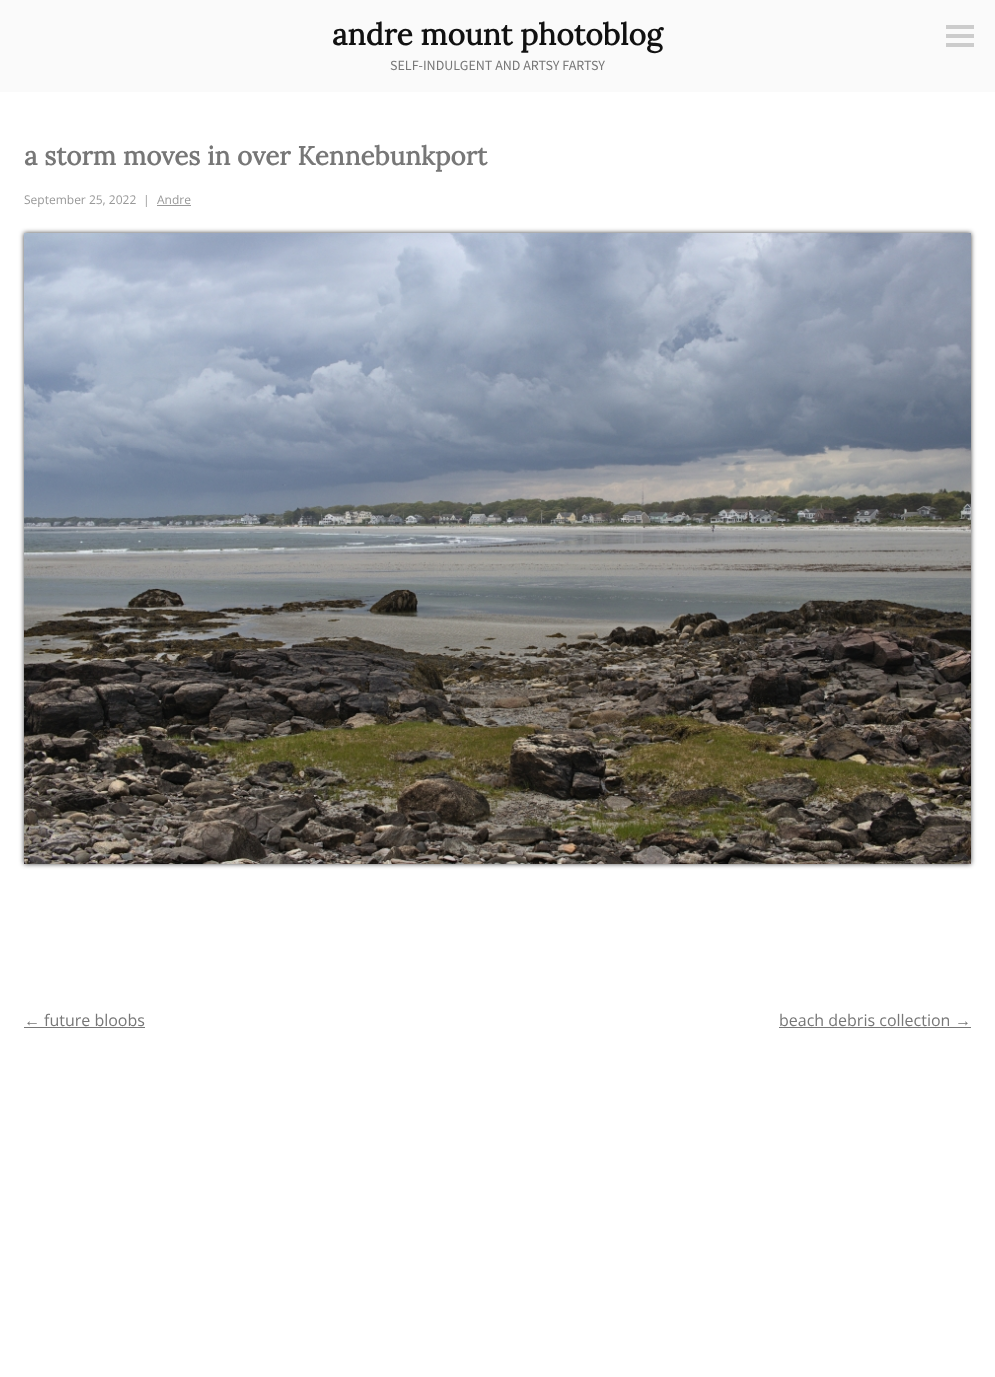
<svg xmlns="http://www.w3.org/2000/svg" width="995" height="1377">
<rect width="100%" height="100%" fill="#fff"/>
<rect width="995" height="92" fill="#fafafa"/>
<text x="332" y="45" style="font-family:Lora;font-size:30px;font-weight:bold;fill:#111">andre mount photoblog</text>
<text x="390" y="70" style="font-family:Source Sans Pro;font-size:14px;fill:#777">SELF-INDULGENT AND ARTSY FARTSY</text>
<rect x="946" y="25" width="28" height="4" fill="#ccc"/>
<rect x="946" y="34" width="28" height="4" fill="#ccc"/>
<rect x="946" y="43" width="28" height="4" fill="#ccc"/>
<text x="24" y="165" style="font-family:Lora;font-size:26px;font-weight:bold;fill:#777">a storm moves in over Kennebunkport</text>
<text x="24" y="204" style="font-family:Open Sans;font-size:12px;fill:#999">September 25, 2022</text>
<text x="143" y="204" style="font-family:Open Sans;font-size:12px;fill:#999">|</text>
<text x="157" y="204" style="font-family:Open Sans;font-size:12px;fill:#999">Andre</text>
<rect x="157" y="205" width="34" height="1" fill="#999"/>
<rect x="24" y="233" width="947" height="631" fill="#000000bf" filter="blur(2.5px)"/>
<image x="24" y="233" width="947" height="631" href="media/1.png"/>
<text x="24" y="1026" style="font-family:Liberation Sans;font-size:16px;fill:#777">←</text>
<rect x="24" y="1027" width="121" height="1" fill="#777"/>
<text x="44" y="1026" style="font-family:Open Sans;font-size:16px;fill:#777">future bloobs</text>
<text x="779" y="1026" style="font-family:Open Sans;font-size:16px;fill:#777">beach debris collection</text>
<text x="955" y="1026" style="font-family:Liberation Sans;font-size:16px;fill:#777">→</text>
<rect x="779" y="1027" width="192" height="1" fill="#777"/>
</svg>
